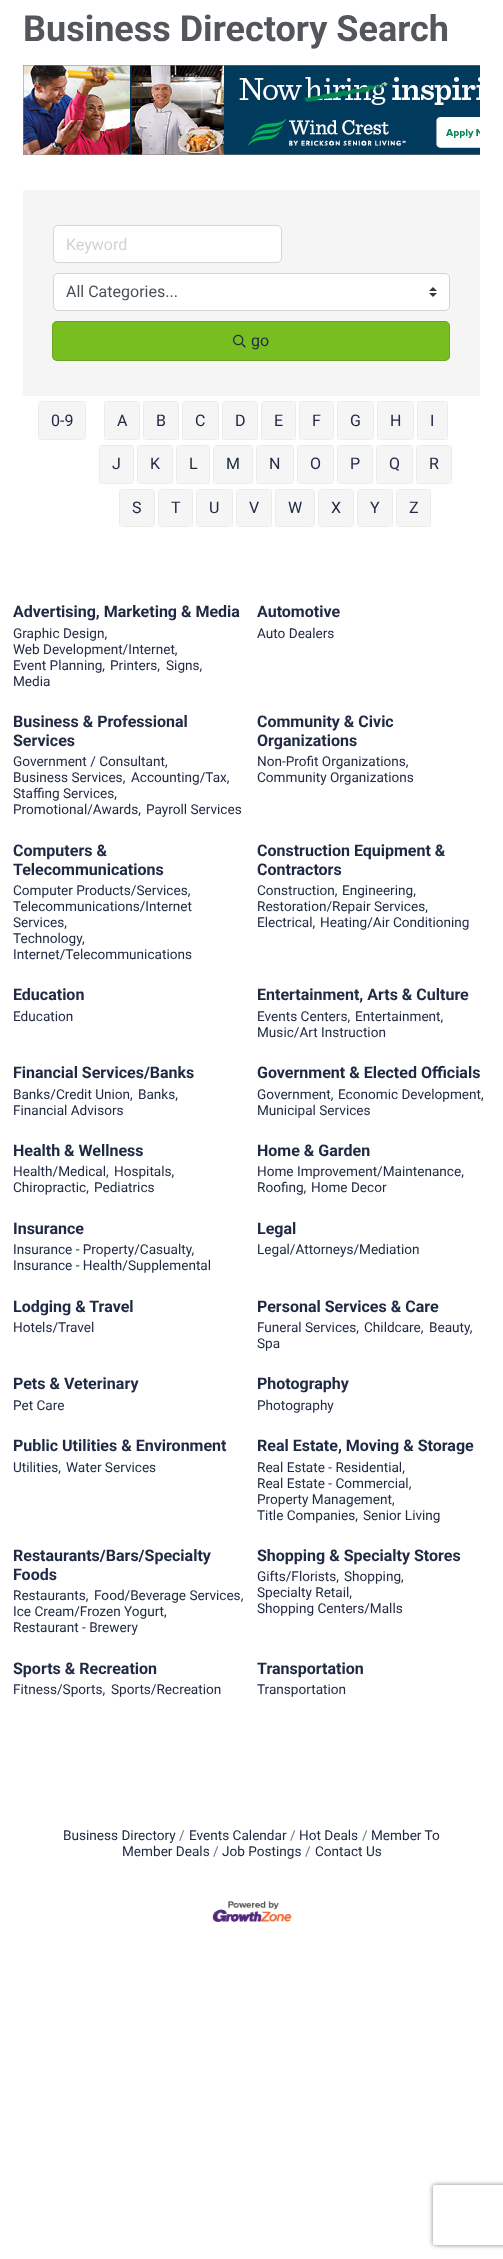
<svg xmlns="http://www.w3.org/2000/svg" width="503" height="2259">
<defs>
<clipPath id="clip1"><path d="M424 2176h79v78h-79zm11 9h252c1 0 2 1 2 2v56c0 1-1 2-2 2h-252c-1 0-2-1-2-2v-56c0-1 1-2 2-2z" clip-rule="evenodd"/></clipPath>
</defs>
<rect width="100%" height="100%" fill="#fff"/>
<text x="23" y="41" style="font-family:Roboto;font-size:36px;font-weight:bold;fill:#53565a">Business Directory Search</text>
<image x="23" y="65" width="457" height="90" href="media/1.png"/>
<rect x="23" y="190" width="457" height="206" fill="#f5f5f5"/>
<rect x="53.5" y="225.5" width="228" height="37" rx="4.5" fill="#fff" stroke="#d6d6d6"/>
<text x="66" y="250" style="font-family:Roboto;font-size:16px;fill:#d2d2d2">Keyword</text>
<rect x="53" y="273" width="397" height="38" rx="5" fill="#fff"/>
<image x="429" y="287" width="8" height="10" href="media/2.png"/>
<rect x="53.5" y="273.5" width="396" height="37" rx="4.5" fill="none" stroke="#ced4da"/>
<text x="66" y="297" style="font-family:Roboto;font-size:16px;fill:#495057">All Categories...</text>
<rect x="52" y="321" width="398" height="40" rx="5" fill="#78be21"/>
<rect x="52.5" y="321.5" width="397" height="39" rx="4.5" fill="none" stroke="#0000001f"/>
<image x="233" y="334" width="13" height="14" href="media/3.png"/>
<text x="251" y="346" style="font-family:Roboto;font-size:16px;fill:#202a44">go</text>
<rect x="38" y="401" width="48" height="39" rx="5" fill="#f5f5f5"/>
<rect x="38.5" y="401.5" width="47" height="38" fill="none" stroke="#0000000a"/>
<text x="51" y="426" style="font-family:Roboto;font-size:16px;fill:#202a44">0-9</text>
<rect x="104" y="401" width="36" height="39" rx="5" fill="#f5f5f5"/>
<rect x="104.5" y="401.5" width="35" height="38" fill="none" stroke="#0000000a"/>
<text x="117" y="426" style="font-family:Roboto;font-size:16px;fill:#202a44">A</text>
<rect x="143" y="401" width="36" height="39" rx="5" fill="#f5f5f5"/>
<rect x="143.5" y="401.5" width="35" height="38" fill="none" stroke="#0000000a"/>
<text x="156" y="426" style="font-family:Roboto;font-size:16px;fill:#202a44">B</text>
<rect x="182" y="401" width="37" height="39" rx="5" fill="#f5f5f5"/>
<rect x="182.5" y="401.5" width="36" height="38" fill="none" stroke="#0000000a"/>
<text x="195" y="426" style="font-family:Roboto;font-size:16px;fill:#202a44">C</text>
<rect x="222" y="401" width="36" height="39" rx="5" fill="#f5f5f5"/>
<rect x="222.5" y="401.5" width="35" height="38" fill="none" stroke="#0000000a"/>
<text x="235" y="426" style="font-family:Roboto;font-size:16px;fill:#202a44">D</text>
<rect x="261" y="401" width="35" height="39" rx="5" fill="#f5f5f5"/>
<rect x="261.5" y="401.5" width="34" height="38" fill="none" stroke="#0000000a"/>
<text x="274" y="426" style="font-family:Roboto;font-size:16px;fill:#202a44">E</text>
<rect x="299" y="401" width="35" height="39" rx="5" fill="#f5f5f5"/>
<rect x="299.5" y="401.5" width="34" height="38" fill="none" stroke="#0000000a"/>
<text x="312" y="426" style="font-family:Roboto;font-size:16px;fill:#202a44">F</text>
<rect x="337" y="401" width="37" height="39" rx="5" fill="#f5f5f5"/>
<rect x="337.5" y="401.5" width="36" height="38" fill="none" stroke="#0000000a"/>
<text x="350" y="426" style="font-family:Roboto;font-size:16px;fill:#202a44">G</text>
<rect x="377" y="401" width="37" height="39" rx="5" fill="#f5f5f5"/>
<rect x="377.5" y="401.5" width="36" height="38" fill="none" stroke="#0000000a"/>
<text x="390" y="426" style="font-family:Roboto;font-size:16px;fill:#202a44">H</text>
<rect x="417" y="401" width="31" height="39" rx="5" fill="#f5f5f5"/>
<rect x="417.5" y="401.5" width="30" height="38" fill="none" stroke="#0000000a"/>
<text x="430" y="426" style="font-family:Roboto;font-size:16px;fill:#202a44">I</text>
<rect x="99" y="445" width="35" height="39" rx="5" fill="#f5f5f5"/>
<rect x="99.5" y="445.5" width="34" height="38" fill="none" stroke="#0000000a"/>
<text x="112" y="469" style="font-family:Roboto;font-size:16px;fill:#202a44">J</text>
<rect x="137" y="445" width="36" height="39" rx="5" fill="#f5f5f5"/>
<rect x="137.5" y="445.5" width="35" height="38" fill="none" stroke="#0000000a"/>
<text x="150" y="469" style="font-family:Roboto;font-size:16px;fill:#202a44">K</text>
<rect x="176" y="445" width="34" height="39" rx="5" fill="#f5f5f5"/>
<rect x="176.5" y="445.5" width="33" height="38" fill="none" stroke="#0000000a"/>
<text x="189" y="469" style="font-family:Roboto;font-size:16px;fill:#202a44">L</text>
<rect x="213" y="445" width="40" height="39" rx="5" fill="#f5f5f5"/>
<rect x="213.5" y="445.5" width="39" height="38" fill="none" stroke="#0000000a"/>
<text x="226" y="469" style="font-family:Roboto;font-size:16px;fill:#202a44">M</text>
<rect x="256" y="445" width="38" height="39" rx="5" fill="#f5f5f5"/>
<rect x="256.5" y="445.5" width="37" height="38" fill="none" stroke="#0000000a"/>
<text x="269" y="469" style="font-family:Roboto;font-size:16px;fill:#202a44">N</text>
<rect x="297" y="445" width="37" height="39" rx="5" fill="#f5f5f5"/>
<rect x="297.5" y="445.5" width="36" height="38" fill="none" stroke="#0000000a"/>
<text x="310" y="469" style="font-family:Roboto;font-size:16px;fill:#202a44">O</text>
<rect x="337" y="445" width="36" height="39" rx="5" fill="#f5f5f5"/>
<rect x="337.5" y="445.5" width="35" height="38" fill="none" stroke="#0000000a"/>
<text x="350" y="469" style="font-family:Roboto;font-size:16px;fill:#202a44">P</text>
<rect x="376" y="445" width="37" height="39" rx="5" fill="#f5f5f5"/>
<rect x="376.5" y="445.5" width="36" height="38" fill="none" stroke="#0000000a"/>
<text x="389" y="469" style="font-family:Roboto;font-size:16px;fill:#202a44">Q</text>
<rect x="416" y="445" width="36" height="39" rx="5" fill="#f5f5f5"/>
<rect x="416.5" y="445.5" width="35" height="38" fill="none" stroke="#0000000a"/>
<text x="429" y="469" style="font-family:Roboto;font-size:16px;fill:#202a44">R</text>
<rect x="119" y="489" width="36" height="38" rx="5" fill="#f5f5f5"/>
<rect x="119.5" y="489.5" width="35" height="37" fill="none" stroke="#0000000a"/>
<text x="132" y="513" style="font-family:Roboto;font-size:16px;fill:#202a44">S</text>
<rect x="158" y="489" width="35" height="38" rx="5" fill="#f5f5f5"/>
<rect x="158.5" y="489.5" width="34" height="37" fill="none" stroke="#0000000a"/>
<text x="171" y="513" style="font-family:Roboto;font-size:16px;fill:#202a44">T</text>
<rect x="196" y="489" width="37" height="38" rx="5" fill="#f5f5f5"/>
<rect x="196.5" y="489.5" width="36" height="37" fill="none" stroke="#0000000a"/>
<text x="209" y="513" style="font-family:Roboto;font-size:16px;fill:#202a44">U</text>
<rect x="236" y="489" width="36" height="38" rx="5" fill="#f5f5f5"/>
<rect x="236.5" y="489.5" width="35" height="37" fill="none" stroke="#0000000a"/>
<text x="249" y="513" style="font-family:Roboto;font-size:16px;fill:#202a44">V</text>
<rect x="275" y="489" width="40" height="38" rx="5" fill="#f5f5f5"/>
<rect x="275.5" y="489.5" width="39" height="37" fill="none" stroke="#0000000a"/>
<text x="288" y="513" style="font-family:Roboto;font-size:16px;fill:#202a44">W</text>
<rect x="318" y="489" width="36" height="38" rx="5" fill="#f5f5f5"/>
<rect x="318.5" y="489.5" width="35" height="37" fill="none" stroke="#0000000a"/>
<text x="331" y="513" style="font-family:Roboto;font-size:16px;fill:#202a44">X</text>
<rect x="357" y="489" width="36" height="38" rx="5" fill="#f5f5f5"/>
<rect x="357.5" y="489.5" width="35" height="37" fill="none" stroke="#0000000a"/>
<text x="370" y="513" style="font-family:Roboto;font-size:16px;fill:#202a44">Y</text>
<rect x="396" y="489" width="35" height="38" rx="5" fill="#f5f5f5"/>
<rect x="396.5" y="489.5" width="34" height="37" fill="none" stroke="#0000000a"/>
<text x="409" y="513" style="font-family:Roboto;font-size:16px;fill:#202a44">Z</text>
<text x="13" y="617" style="font-family:Roboto;font-size:16px;font-weight:bold;fill:#202a44">Advertising, Marketing &amp; Media</text>
<text x="13" y="638" style="font-family:Roboto;font-size:13.6px;fill:#202a44">Graphic Design,</text>
<text x="13" y="654" style="font-family:Roboto;font-size:13.6px;fill:#202a44">Web Development/Internet,</text>
<text x="13" y="670" style="font-family:Roboto;font-size:13.6px;fill:#202a44">Event Planning,</text>
<text x="110" y="670" style="font-family:Roboto;font-size:13.6px;fill:#202a44">Printers,</text>
<text x="166" y="670" style="font-family:Roboto;font-size:13.6px;fill:#202a44">Signs,</text>
<text x="13" y="686" style="font-family:Roboto;font-size:13.6px;fill:#202a44">Media</text>
<text x="257" y="617" style="font-family:Roboto;font-size:16px;font-weight:bold;fill:#202a44">Automotive</text>
<text x="257" y="638" style="font-family:Roboto;font-size:13.6px;fill:#202a44">Auto Dealers</text>
<text x="13" y="727" style="font-family:Roboto;font-size:16px;font-weight:bold;fill:#202a44">Business &amp; Professional</text>
<text x="13" y="746" style="font-family:Roboto;font-size:16px;font-weight:bold;fill:#202a44">Services</text>
<text x="13" y="766" style="font-family:Roboto;font-size:13.6px;fill:#202a44">Government / Consultant,</text>
<text x="13" y="782" style="font-family:Roboto;font-size:13.6px;fill:#202a44">Business Services,</text>
<text x="131" y="782" style="font-family:Roboto;font-size:13.6px;fill:#202a44">Accounting/Tax,</text>
<text x="13" y="798" style="font-family:Roboto;font-size:13.6px;fill:#202a44">Staffing Services,</text>
<text x="13" y="814" style="font-family:Roboto;font-size:13.6px;fill:#202a44">Promotional/Awards,</text>
<text x="146" y="814" style="font-family:Roboto;font-size:13.6px;fill:#202a44">Payroll Services</text>
<text x="257" y="727" style="font-family:Roboto;font-size:16px;font-weight:bold;fill:#202a44">Community &amp; Civic</text>
<text x="257" y="746" style="font-family:Roboto;font-size:16px;font-weight:bold;fill:#202a44">Organizations</text>
<text x="257" y="766" style="font-family:Roboto;font-size:13.6px;fill:#202a44">Non-Profit Organizations,</text>
<text x="257" y="782" style="font-family:Roboto;font-size:13.6px;fill:#202a44">Community Organizations</text>
<text x="13" y="856" style="font-family:Roboto;font-size:16px;font-weight:bold;fill:#202a44">Computers &amp;</text>
<text x="13" y="875" style="font-family:Roboto;font-size:16px;font-weight:bold;fill:#202a44">Telecommunications</text>
<text x="13" y="895" style="font-family:Roboto;font-size:13.6px;fill:#202a44">Computer Products/Services,</text>
<text x="13" y="911" style="font-family:Roboto;font-size:13.6px;fill:#202a44">Telecommunications/Internet</text>
<text x="13" y="927" style="font-family:Roboto;font-size:13.6px;fill:#202a44">Services,</text>
<text x="13" y="943" style="font-family:Roboto;font-size:13.6px;fill:#202a44">Technology,</text>
<text x="13" y="959" style="font-family:Roboto;font-size:13.6px;fill:#202a44">Internet/Telecommunications</text>
<text x="257" y="856" style="font-family:Roboto;font-size:16px;font-weight:bold;fill:#202a44">Construction Equipment &amp;</text>
<text x="257" y="875" style="font-family:Roboto;font-size:16px;font-weight:bold;fill:#202a44">Contractors</text>
<text x="257" y="895" style="font-family:Roboto;font-size:13.6px;fill:#202a44">Construction,</text>
<text x="342" y="895" style="font-family:Roboto;font-size:13.6px;fill:#202a44">Engineering,</text>
<text x="257" y="911" style="font-family:Roboto;font-size:13.6px;fill:#202a44">Restoration/Repair Services,</text>
<text x="257" y="927" style="font-family:Roboto;font-size:13.6px;fill:#202a44">Electrical,</text>
<text x="320" y="927" style="font-family:Roboto;font-size:13.6px;fill:#202a44">Heating/Air Conditioning</text>
<text x="13" y="1000" style="font-family:Roboto;font-size:16px;font-weight:bold;fill:#202a44">Education</text>
<text x="13" y="1021" style="font-family:Roboto;font-size:13.6px;fill:#202a44">Education</text>
<text x="257" y="1000" style="font-family:Roboto;font-size:16px;font-weight:bold;fill:#202a44">Entertainment, Arts &amp; Culture</text>
<text x="257" y="1021" style="font-family:Roboto;font-size:13.6px;fill:#202a44">Events Centers,</text>
<text x="355" y="1021" style="font-family:Roboto;font-size:13.6px;fill:#202a44">Entertainment,</text>
<text x="257" y="1037" style="font-family:Roboto;font-size:13.6px;fill:#202a44">Music/Art Instruction</text>
<text x="13" y="1078" style="font-family:Roboto;font-size:16px;font-weight:bold;fill:#202a44">Financial Services/Banks</text>
<text x="13" y="1099" style="font-family:Roboto;font-size:13.6px;fill:#202a44">Banks/Credit Union,</text>
<text x="138" y="1099" style="font-family:Roboto;font-size:13.6px;fill:#202a44">Banks,</text>
<text x="13" y="1115" style="font-family:Roboto;font-size:13.6px;fill:#202a44">Financial Advisors</text>
<text x="257" y="1078" style="font-family:Roboto;font-size:16px;font-weight:bold;fill:#202a44">Government &amp; Elected Officials</text>
<text x="257" y="1099" style="font-family:Roboto;font-size:13.6px;fill:#202a44">Government,</text>
<text x="338" y="1099" style="font-family:Roboto;font-size:13.6px;fill:#202a44">Economic Development,</text>
<text x="257" y="1115" style="font-family:Roboto;font-size:13.6px;fill:#202a44">Municipal Services</text>
<text x="13" y="1156" style="font-family:Roboto;font-size:16px;font-weight:bold;fill:#202a44">Health &amp; Wellness</text>
<text x="13" y="1176" style="font-family:Roboto;font-size:13.6px;fill:#202a44">Health/Medical,</text>
<text x="114" y="1176" style="font-family:Roboto;font-size:13.6px;fill:#202a44">Hospitals,</text>
<text x="13" y="1192" style="font-family:Roboto;font-size:13.6px;fill:#202a44">Chiropractic,</text>
<text x="94" y="1192" style="font-family:Roboto;font-size:13.6px;fill:#202a44">Pediatrics</text>
<text x="257" y="1156" style="font-family:Roboto;font-size:16px;font-weight:bold;fill:#202a44">Home &amp; Garden</text>
<text x="257" y="1176" style="font-family:Roboto;font-size:13.6px;fill:#202a44">Home Improvement/Maintenance,</text>
<text x="257" y="1192" style="font-family:Roboto;font-size:13.6px;fill:#202a44">Roofing,</text>
<text x="311" y="1192" style="font-family:Roboto;font-size:13.6px;fill:#202a44">Home Decor</text>
<text x="13" y="1234" style="font-family:Roboto;font-size:16px;font-weight:bold;fill:#202a44">Insurance</text>
<text x="13" y="1254" style="font-family:Roboto;font-size:13.6px;fill:#202a44">Insurance - Property/Casualty,</text>
<text x="13" y="1270" style="font-family:Roboto;font-size:13.6px;fill:#202a44">Insurance - Health/Supplemental</text>
<text x="257" y="1234" style="font-family:Roboto;font-size:16px;font-weight:bold;fill:#202a44">Legal</text>
<text x="257" y="1254" style="font-family:Roboto;font-size:13.6px;fill:#202a44">Legal/Attorneys/Mediation</text>
<text x="13" y="1312" style="font-family:Roboto;font-size:16px;font-weight:bold;fill:#202a44">Lodging &amp; Travel</text>
<text x="13" y="1332" style="font-family:Roboto;font-size:13.6px;fill:#202a44">Hotels/Travel</text>
<text x="257" y="1312" style="font-family:Roboto;font-size:16px;font-weight:bold;fill:#202a44">Personal Services &amp; Care</text>
<text x="257" y="1332" style="font-family:Roboto;font-size:13.6px;fill:#202a44">Funeral Services,</text>
<text x="364" y="1332" style="font-family:Roboto;font-size:13.6px;fill:#202a44">Childcare,</text>
<text x="429" y="1332" style="font-family:Roboto;font-size:13.6px;fill:#202a44">Beauty,</text>
<text x="257" y="1348" style="font-family:Roboto;font-size:13.6px;fill:#202a44">Spa</text>
<text x="13" y="1389" style="font-family:Roboto;font-size:16px;font-weight:bold;fill:#202a44">Pets &amp; Veterinary</text>
<text x="13" y="1410" style="font-family:Roboto;font-size:13.6px;fill:#202a44">Pet Care</text>
<text x="257" y="1389" style="font-family:Roboto;font-size:16px;font-weight:bold;fill:#202a44">Photography</text>
<text x="257" y="1410" style="font-family:Roboto;font-size:13.6px;fill:#202a44">Photography</text>
<text x="13" y="1451" style="font-family:Roboto;font-size:16px;font-weight:bold;fill:#202a44">Public Utilities &amp; Environment</text>
<text x="13" y="1472" style="font-family:Roboto;font-size:13.6px;fill:#202a44">Utilities,</text>
<text x="66" y="1472" style="font-family:Roboto;font-size:13.6px;fill:#202a44">Water Services</text>
<text x="257" y="1451" style="font-family:Roboto;font-size:16px;font-weight:bold;fill:#202a44">Real Estate, Moving &amp; Storage</text>
<text x="257" y="1472" style="font-family:Roboto;font-size:13.6px;fill:#202a44">Real Estate - Residential,</text>
<text x="257" y="1488" style="font-family:Roboto;font-size:13.6px;fill:#202a44">Real Estate - Commercial,</text>
<text x="257" y="1504" style="font-family:Roboto;font-size:13.6px;fill:#202a44">Property Management,</text>
<text x="257" y="1520" style="font-family:Roboto;font-size:13.6px;fill:#202a44">Title Companies,</text>
<text x="363" y="1520" style="font-family:Roboto;font-size:13.6px;fill:#202a44">Senior Living</text>
<text x="13" y="1561" style="font-family:Roboto;font-size:16px;font-weight:bold;fill:#202a44">Restaurants/Bars/Specialty</text>
<text x="13" y="1580" style="font-family:Roboto;font-size:16px;font-weight:bold;fill:#202a44">Foods</text>
<text x="13" y="1600" style="font-family:Roboto;font-size:13.6px;fill:#202a44">Restaurants,</text>
<text x="94" y="1600" style="font-family:Roboto;font-size:13.6px;fill:#202a44">Food/Beverage Services,</text>
<text x="13" y="1616" style="font-family:Roboto;font-size:13.6px;fill:#202a44">Ice Cream/Frozen Yogurt,</text>
<text x="13" y="1632" style="font-family:Roboto;font-size:13.6px;fill:#202a44">Restaurant - Brewery</text>
<text x="257" y="1561" style="font-family:Roboto;font-size:16px;font-weight:bold;fill:#202a44">Shopping &amp; Specialty Stores</text>
<text x="257" y="1581" style="font-family:Roboto;font-size:13.6px;fill:#202a44">Gifts/Florists,</text>
<text x="344" y="1581" style="font-family:Roboto;font-size:13.6px;fill:#202a44">Shopping,</text>
<text x="257" y="1597" style="font-family:Roboto;font-size:13.6px;fill:#202a44">Specialty Retail,</text>
<text x="257" y="1613" style="font-family:Roboto;font-size:13.6px;fill:#202a44">Shopping Centers/Malls</text>
<text x="13" y="1674" style="font-family:Roboto;font-size:16px;font-weight:bold;fill:#202a44">Sports &amp; Recreation</text>
<text x="13" y="1694" style="font-family:Roboto;font-size:13.6px;fill:#202a44">Fitness/Sports,</text>
<text x="111" y="1694" style="font-family:Roboto;font-size:13.6px;fill:#202a44">Sports/Recreation</text>
<text x="257" y="1674" style="font-family:Roboto;font-size:16px;font-weight:bold;fill:#202a44">Transportation</text>
<text x="257" y="1694" style="font-family:Roboto;font-size:13.6px;fill:#202a44">Transportation</text>
<text x="362" y="1840" style="font-family:Roboto;font-size:13.6px;fill:#6c757d">/</text>
<text x="371" y="1840" style="font-family:Roboto;font-size:13.6px;fill:#202a44">Member To</text>
<text x="122" y="1856" style="font-family:Roboto;font-size:13.6px;fill:#202a44">Member Deals</text>
<text x="63" y="1840" style="font-family:Roboto;font-size:13.6px;fill:#202a44">Business Directory</text>
<text x="179" y="1840" style="font-family:Roboto;font-size:13.6px;fill:#6c757d">/</text>
<text x="189" y="1840" style="font-family:Roboto;font-size:13.6px;fill:#202a44">Events Calendar</text>
<text x="290" y="1840" style="font-family:Roboto;font-size:13.6px;fill:#6c757d">/</text>
<text x="299" y="1840" style="font-family:Roboto;font-size:13.6px;fill:#202a44">Hot Deals</text>
<text x="213" y="1856" style="font-family:Roboto;font-size:13.6px;fill:#6c757d">/</text>
<text x="222" y="1856" style="font-family:Roboto;font-size:13.6px;fill:#202a44">Job Postings</text>
<text x="305" y="1856" style="font-family:Roboto;font-size:13.6px;fill:#6c757d">/</text>
<text x="315" y="1856" style="font-family:Roboto;font-size:13.6px;fill:#202a44">Contact Us</text>
<image x="212" y="1901" width="80" height="21" href="media/4.png"/>
<g clip-path="url(#clip1)">
<rect x="433" y="2185" width="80" height="60" rx="2" fill="#808080" filter="blur(2.5px)"/>
</g>
</svg>
